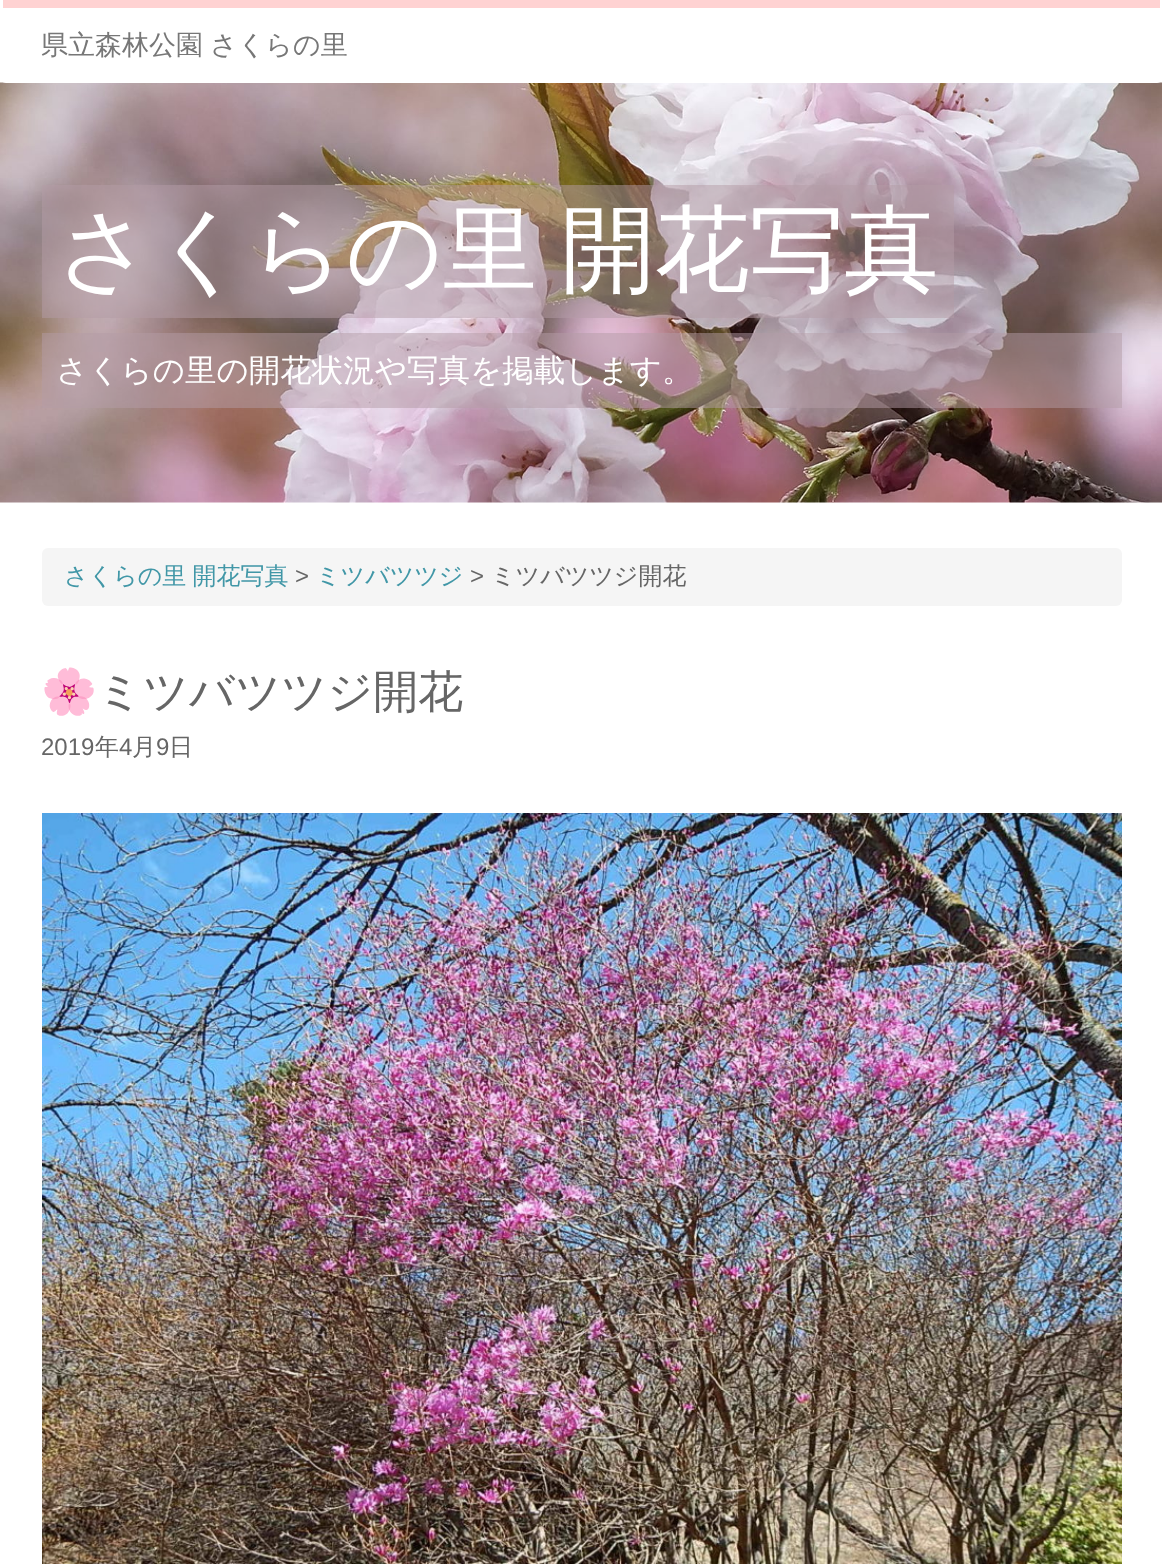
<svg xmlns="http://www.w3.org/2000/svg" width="1162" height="1564">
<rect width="100%" height="100%" fill="#fff"/>
<image x="0" y="82" width="1162" height="421" href="media/1.png"/>
<rect width="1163" height="83" rx="6" fill="#fff"/>
<rect x="3" width="1157" height="8" fill="#ffd2d2"/>
<text x="41" y="54" word-spacing="-1" style="font-family:WenQuanYi Zen Hei;font-size:27px;font-weight:500;fill:#777">県立森林公園 さくらの里</text>
<rect x="42" y="185" width="912" height="133" fill="#b39ba680"/>
<text x="56" y="282" word-spacing="-5" style="font-family:WenQuanYi Zen Hei;font-size:94.5px;font-weight:500;fill:#fff">さくらの里 開花写真</text>
<rect x="42" y="333" width="1080" height="75" fill="#b39ba680"/>
<text x="56" y="381" style="font-family:WenQuanYi Zen Hei;font-size:31.5px;font-weight:500;fill:#fff">さくらの里の開花状況や写真を掲載します。</text>
<rect x="42" y="548" width="1080" height="58" rx="6" fill="#f5f5f5"/>
<text x="64" y="584" word-spacing="-1" style="font-family:WenQuanYi Zen Hei;font-size:24px;font-weight:500;fill:#4197a7">さくらの里 開花写真</text>
<text x="295" y="584" style="font-family:Liberation Sans;font-size:24px;fill:#666">&gt;</text>
<text x="316" y="584" style="font-family:WenQuanYi Zen Hei;font-size:24px;font-weight:500;fill:#4197a7">ミツバツツジ</text>
<text x="470" y="584" style="font-family:Liberation Sans;font-size:24px;fill:#666">&gt;</text>
<text x="491" y="584" style="font-family:WenQuanYi Zen Hei;font-size:24px;font-weight:500;fill:#666">ミツバツツジ開花</text>
<text x="41" y="707" style="font-family:Noto Color Emoji;font-size:45px;fill:#666">🌸</text>
<text x="97" y="707" style="font-family:WenQuanYi Zen Hei;font-size:45px;font-weight:500;fill:#666">ミツバツツジ開花</text>
<text x="41" y="755" style="font-family:Liberation Sans;font-size:24px;fill:#666">2019</text>
<text x="95" y="755" style="font-family:WenQuanYi Zen Hei;font-size:24px;font-weight:500;fill:#666">年</text>
<text x="119" y="755" style="font-family:Liberation Sans;font-size:24px;fill:#666">4</text>
<text x="132" y="755" style="font-family:WenQuanYi Zen Hei;font-size:24px;font-weight:500;fill:#666">月</text>
<text x="156" y="755" style="font-family:Liberation Sans;font-size:24px;fill:#666">9</text>
<text x="169" y="755" style="font-family:WenQuanYi Zen Hei;font-size:24px;font-weight:500;fill:#666">日</text>
<image x="42" y="813" width="1080" height="751" href="media/2.png"/>
</svg>
